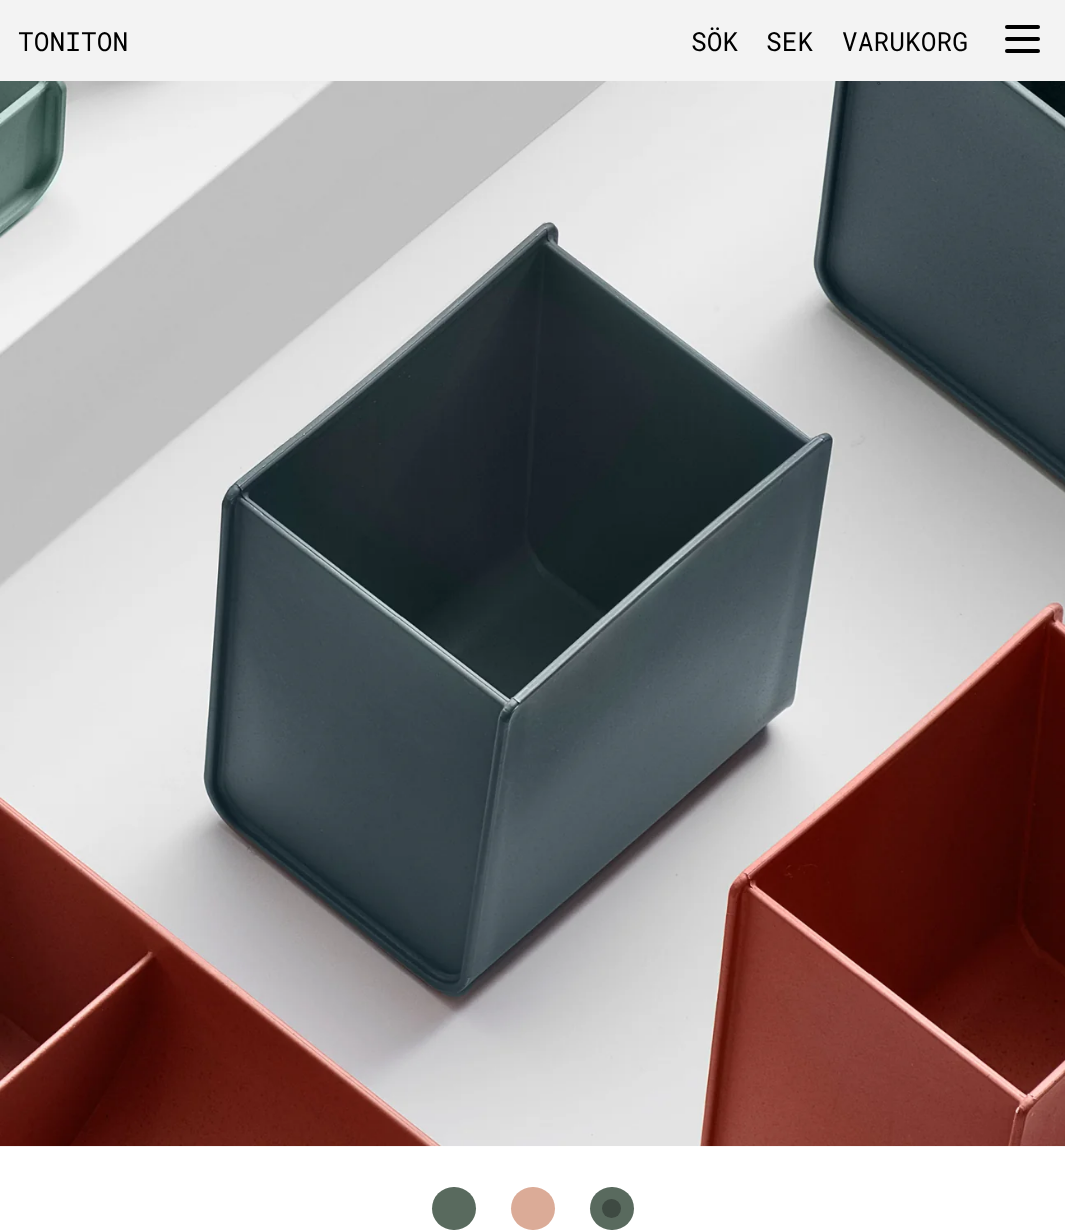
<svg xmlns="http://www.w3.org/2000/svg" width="1065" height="1232">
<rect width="100%" height="100%" fill="#fff"/>
<rect width="1065" height="81" fill="#f3f3f3"/>
<text x="18" y="51" style="font-family:Roboto Mono;font-size:26.25px;fill:#000">TONITON</text>
<text x="691" y="51" style="font-family:Roboto Mono;font-size:26.25px;fill:#000">SÖK</text>
<text x="766" y="51" style="font-family:Roboto Mono;font-size:26.25px;fill:#000">SEK</text>
<text x="842" y="51" style="font-family:Roboto Mono;font-size:26.25px;fill:#000">VARUKORG</text>
<rect x="1005" y="25" width="35" height="4" rx="2" fill="#000"/>
<rect x="1005" y="37" width="35" height="4" rx="2" fill="#000"/>
<rect x="1005" y="49" width="35" height="4" rx="2" fill="#000"/>
<image x="0" y="81" width="1065" height="1066" href="media/1.png"/>
<rect x="432" y="1187" width="44" height="43" rx="21.5" fill="#596a5e"/>
<rect x="511" y="1187" width="44" height="43" rx="21.5" fill="#dbab97"/>
<rect x="590" y="1187" width="44" height="43" rx="21.5" fill="#596a5e"/>
<circle cx="611.5" cy="1208.5" r="9.5" fill="#3e4a42"/>
</svg>
